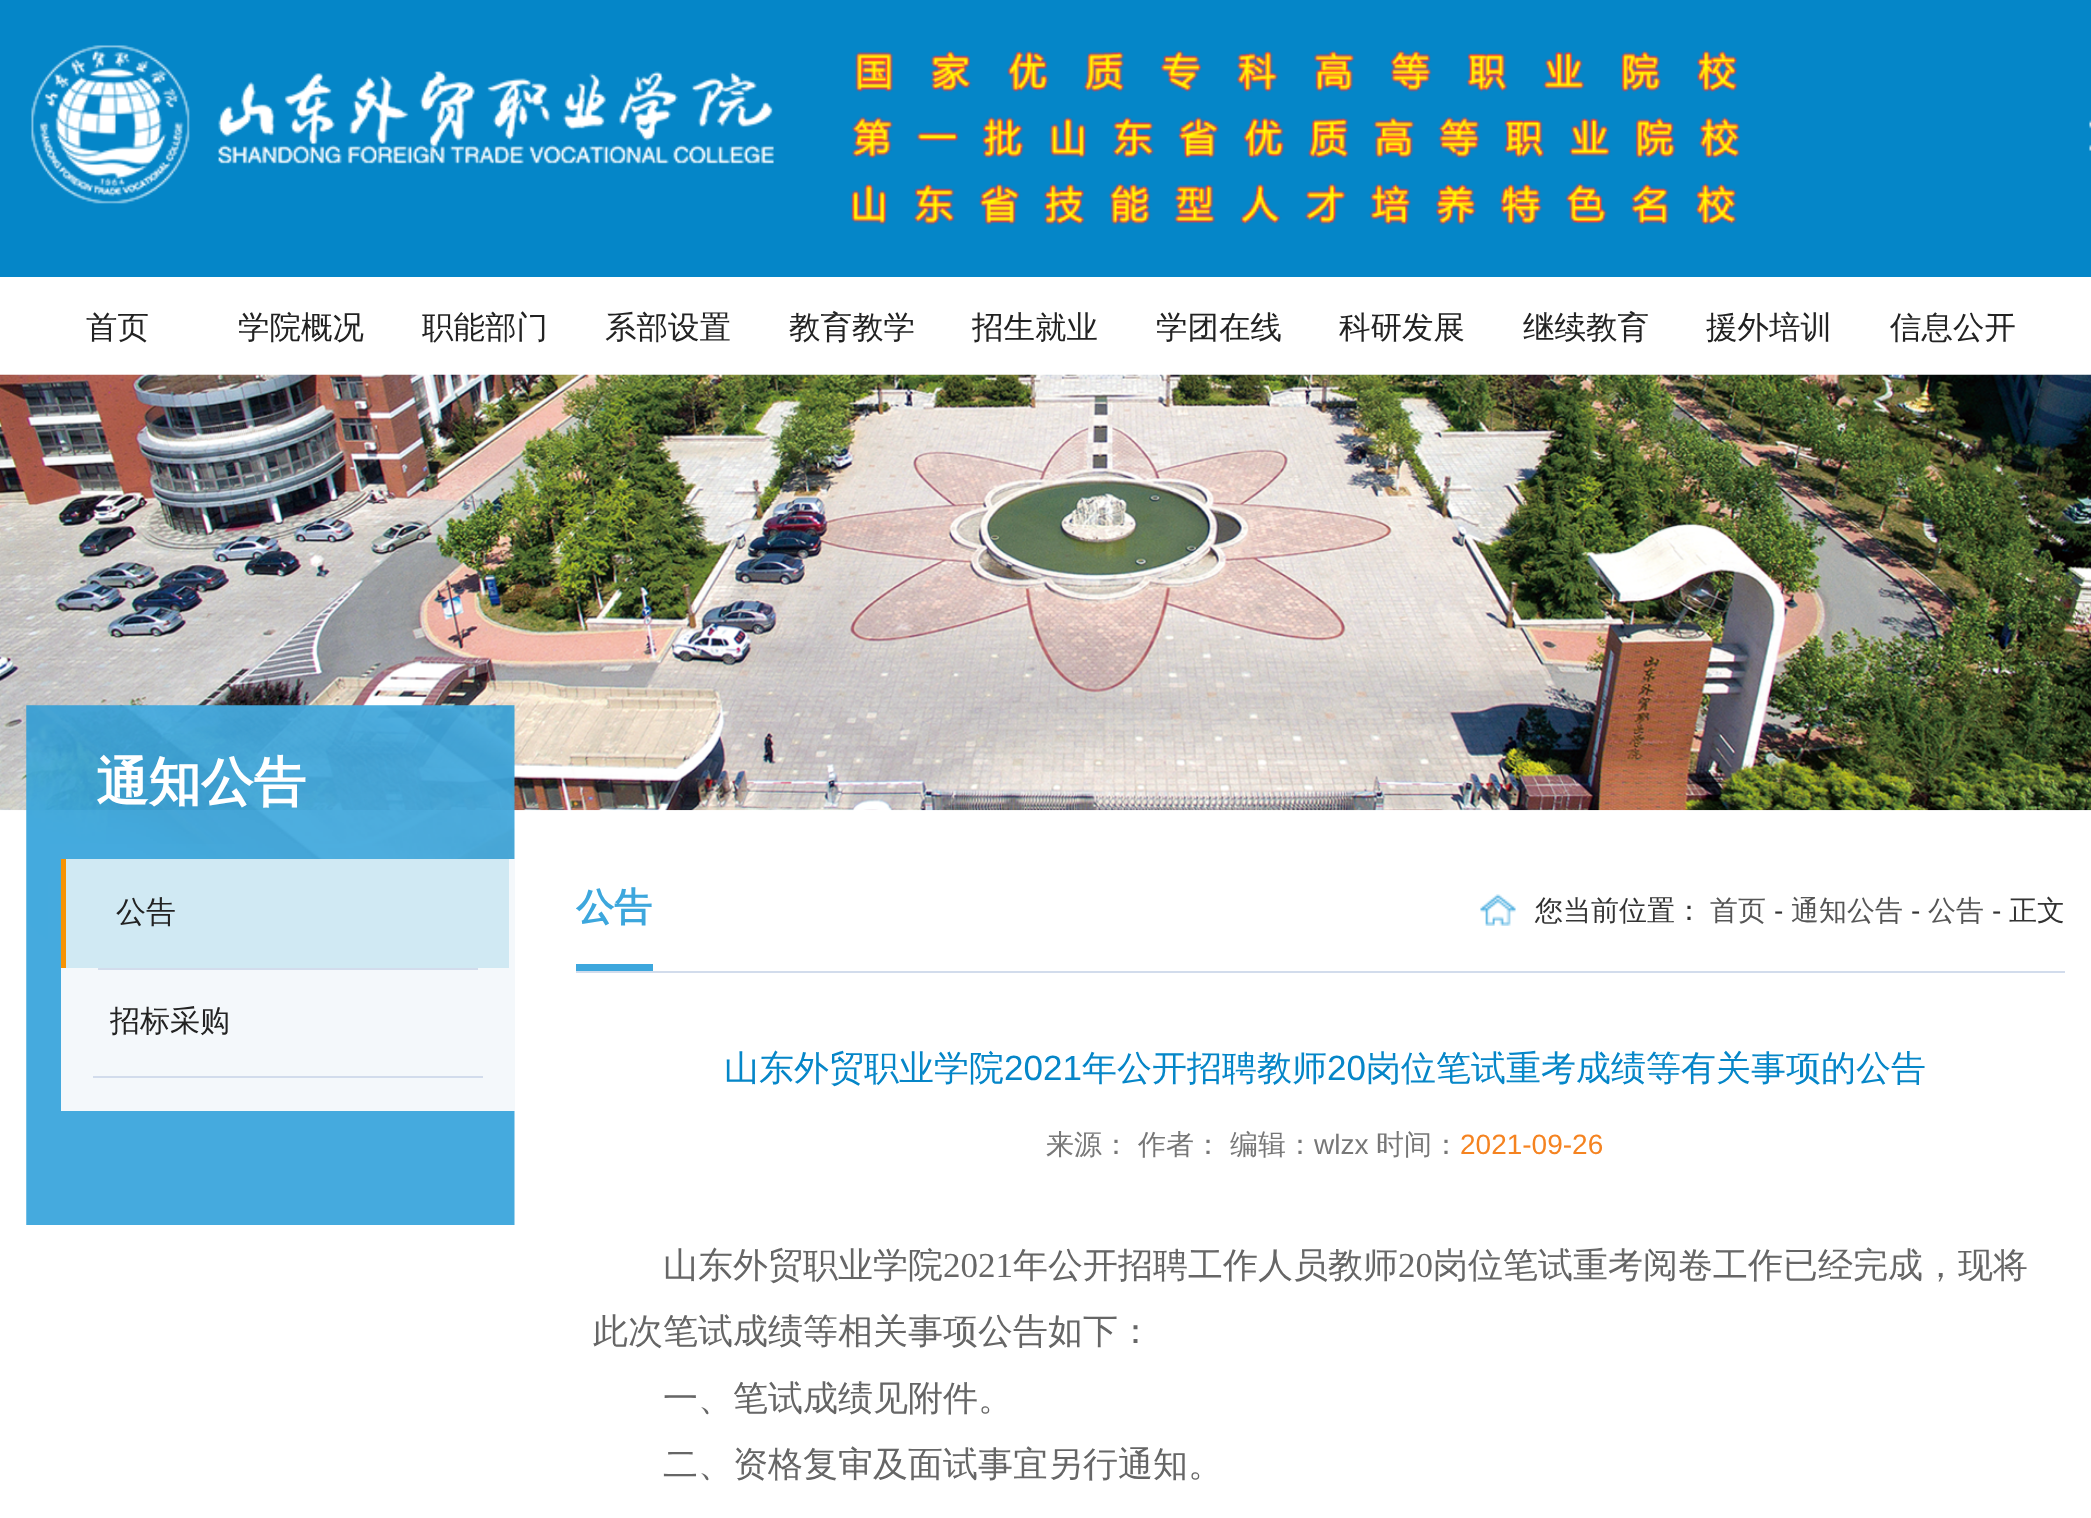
<svg xmlns="http://www.w3.org/2000/svg" width="2091" height="1518">
<rect width="100%" height="100%" fill="#fff"/>
<rect width="2091" height="277" fill="#0586c8"/>
<image x="31" y="45" width="743" height="159" href="media/1.png"/>
<image x="850" y="50" width="890" height="175" href="media/2.png"/>
<image x="2089" y="120" width="2" height="31" href="media/3.png"/>
<text x="86" y="338" style="font-family:WenQuanYi Zen Hei;font-size:31.5px;font-weight:500;fill:#222">首页</text>
<text x="238" y="338" style="font-family:WenQuanYi Zen Hei;font-size:31.5px;font-weight:500;fill:#222">学院概况</text>
<text x="422" y="338" style="font-family:WenQuanYi Zen Hei;font-size:31.5px;font-weight:500;fill:#222">职能部门</text>
<text x="605" y="338" style="font-family:WenQuanYi Zen Hei;font-size:31.5px;font-weight:500;fill:#222">系部设置</text>
<text x="789" y="338" style="font-family:WenQuanYi Zen Hei;font-size:31.5px;font-weight:500;fill:#222">教育教学</text>
<text x="972" y="338" style="font-family:WenQuanYi Zen Hei;font-size:31.5px;font-weight:500;fill:#222">招生就业</text>
<text x="1156" y="338" style="font-family:WenQuanYi Zen Hei;font-size:31.5px;font-weight:500;fill:#222">学团在线</text>
<text x="1339" y="338" style="font-family:WenQuanYi Zen Hei;font-size:31.5px;font-weight:500;fill:#222">科研发展</text>
<text x="1523" y="338" style="font-family:WenQuanYi Zen Hei;font-size:31.5px;font-weight:500;fill:#222">继续教育</text>
<text x="1706" y="338" style="font-family:WenQuanYi Zen Hei;font-size:31.5px;font-weight:500;fill:#222">援外培训</text>
<text x="1890" y="338" style="font-family:WenQuanYi Zen Hei;font-size:31.5px;font-weight:500;fill:#222">信息公开</text>
<image x="0" y="374" width="2091" height="437" href="media/4.png"/>
<image x="26" y="705" width="489" height="520" href="media/5.png"/>
<text x="96" y="800" style="font-family:WenQuanYi Zen Hei;font-size:52.5px;font-weight:bold;fill:#fff">通知公告</text>
<rect x="61" y="859" width="454" height="252" fill="#f4f8fb"/>
<rect x="66" y="859" width="443" height="109" fill="#d0e9f3"/>
<rect x="61" y="859" width="5" height="109" fill="#f69305"/>
<rect x="98" y="968" width="380" height="2" fill="#d2dcec"/>
<text x="116" y="922" style="font-family:WenQuanYi Zen Hei;font-size:30px;font-weight:500;fill:#222">公告</text>
<rect x="93" y="1076" width="390" height="2" fill="#d2dcec"/>
<text x="110" y="1031" style="font-family:WenQuanYi Zen Hei;font-size:30px;font-weight:500;fill:#222">招标采购</text>
<rect x="576" y="971" width="1489" height="2" fill="#d2dcec"/>
<rect x="576" y="964" width="77" height="7" fill="#3da7dd"/>
<text x="576" y="920" style="font-family:WenQuanYi Zen Hei;font-size:38px;font-weight:bold;fill:#3da7dd">公告</text>
<image x="1480" y="894" width="36" height="32" href="media/6.png"/>
<text x="1535" y="920" style="font-family:WenQuanYi Zen Hei;font-size:28px;font-weight:500;fill:#333">您当前位置：</text>
<text x="1710" y="920" style="font-family:WenQuanYi Zen Hei;font-size:28px;font-weight:500;fill:#555">首页</text>
<text x="1774" y="920" style="font-family:Liberation Sans;font-size:28px;fill:#333">-</text>
<text x="1791" y="920" style="font-family:WenQuanYi Zen Hei;font-size:28px;font-weight:500;fill:#555">通知公告</text>
<text x="1911" y="920" style="font-family:Liberation Sans;font-size:28px;fill:#333">-</text>
<text x="1928" y="920" style="font-family:WenQuanYi Zen Hei;font-size:28px;font-weight:500;fill:#555">公告</text>
<text x="1992" y="920" style="font-family:Liberation Sans;font-size:28px;fill:#333">-</text>
<text x="2009" y="920" style="font-family:WenQuanYi Zen Hei;font-size:28px;font-weight:500;fill:#333">正文</text>
<text x="724" y="1080" style="font-family:WenQuanYi Zen Hei;font-size:35px;font-weight:500;fill:#0586c8">山东外贸职业学院</text>
<text x="1004" y="1080" style="font-family:Liberation Sans;font-size:35px;fill:#0586c8">2021</text>
<text x="1082" y="1080" style="font-family:WenQuanYi Zen Hei;font-size:35px;font-weight:500;fill:#0586c8">年公开招聘教师</text>
<text x="1327" y="1080" style="font-family:Liberation Sans;font-size:35px;fill:#0586c8">20</text>
<text x="1366" y="1080" style="font-family:WenQuanYi Zen Hei;font-size:35px;font-weight:500;fill:#0586c8">岗位笔试重考成绩等有关事项的公告</text>
<text x="1046" y="1154" style="font-family:WenQuanYi Zen Hei;font-size:28px;font-weight:500;fill:#777">来源：</text>
<text x="1138" y="1154" style="font-family:WenQuanYi Zen Hei;font-size:28px;font-weight:500;fill:#777">作者：</text>
<text x="1230" y="1154" style="font-family:WenQuanYi Zen Hei;font-size:28px;font-weight:500;fill:#777">编辑：</text>
<text x="1314" y="1154" style="font-family:Liberation Sans;font-size:28px;fill:#777">wlzx</text>
<text x="1376" y="1154" style="font-family:WenQuanYi Zen Hei;font-size:28px;font-weight:500;fill:#777">时间：</text>
<text x="1460" y="1154" style="font-family:Liberation Sans;font-size:28px;fill:#f58320">2021-09-26</text>
<text x="663" y="1277" style="font-family:WenQuanYi Zen Hei;font-size:35px;font-weight:500;fill:#666">山东外贸职业学院</text>
<text x="943" y="1277" style="font-family:Liberation Serif;font-size:35px;fill:#666">2021</text>
<text x="1013" y="1277" style="font-family:WenQuanYi Zen Hei;font-size:35px;font-weight:500;fill:#666">年公开招聘工作人员教师</text>
<text x="1398" y="1277" style="font-family:Liberation Serif;font-size:35px;fill:#666">20</text>
<text x="1433" y="1277" style="font-family:WenQuanYi Zen Hei;font-size:35px;font-weight:500;fill:#666">岗位笔试重考阅卷工作已经完成，现将</text>
<text x="593" y="1343" style="font-family:WenQuanYi Zen Hei;font-size:35px;font-weight:500;fill:#666">此次笔试成绩等相关事项公告如下：</text>
<text x="663" y="1410" style="font-family:WenQuanYi Zen Hei;font-size:35px;font-weight:500;fill:#666">一、笔试成绩见附件。</text>
<text x="663" y="1476" style="font-family:WenQuanYi Zen Hei;font-size:35px;font-weight:500;fill:#666">二、资格复审及面试事宜另行通知。</text>
</svg>
